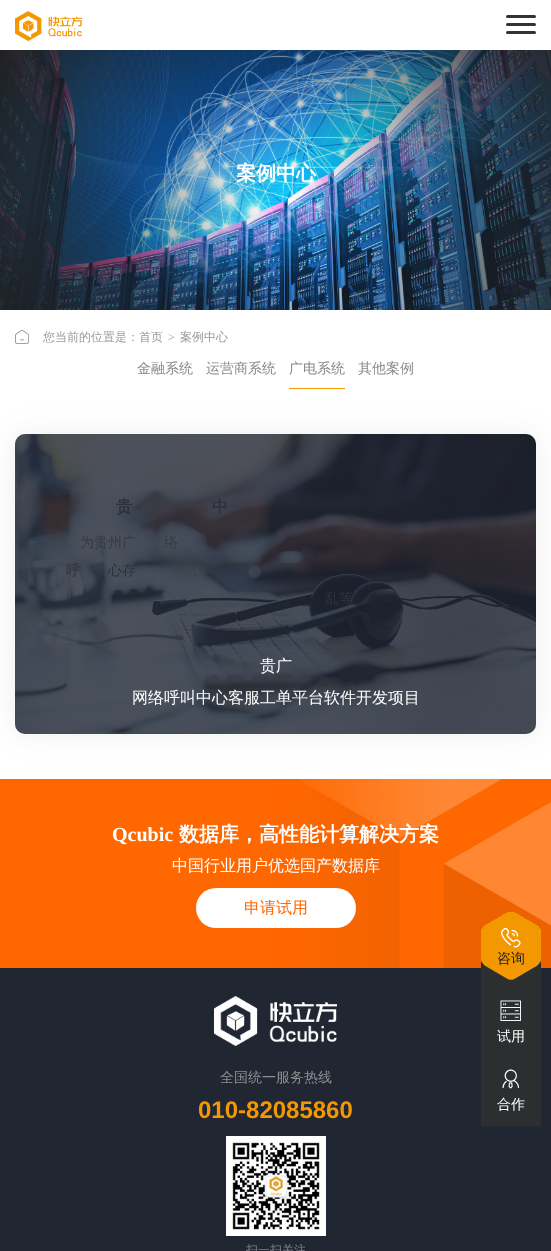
<svg xmlns="http://www.w3.org/2000/svg" width="551" height="1251">
<rect width="100%" height="100%" fill="#fff"/>
<image x="15" y="11" width="67" height="31" href="media/1.png"/>
<rect x="506" y="15" width="30" height="3" rx="1.5" fill="#333"/>
<rect x="506" y="23" width="30" height="3" rx="1.5" fill="#333"/>
<rect x="506" y="31" width="30" height="3" rx="1.5" fill="#333"/>
<image x="0" y="50" width="551" height="260" href="media/2.png"/>
<text x="236" y="180" style="font-family:WenQuanYi Zen Hei;font-size:20px;font-weight:bold;fill:#fff">案例中心</text>
<image x="15" y="330" width="14" height="14" href="media/3.png"/>
<text x="43" y="341" style="font-family:WenQuanYi Zen Hei;font-size:12px;font-weight:500;fill:#999">您当前的位置是：首页</text>
<text x="168" y="341" style="font-family:Liberation Serif;font-size:12px;fill:#999">&gt;</text>
<text x="180" y="341" style="font-family:WenQuanYi Zen Hei;font-size:12px;font-weight:500;fill:#999">案例中心</text>
<text x="137" y="373" style="font-family:WenQuanYi Zen Hei;font-size:14px;font-weight:500;fill:#888">金融系统</text>
<text x="206" y="373" style="font-family:WenQuanYi Zen Hei;font-size:14px;font-weight:500;fill:#888">运营商系统</text>
<text x="289" y="373" style="font-family:WenQuanYi Zen Hei;font-size:14px;font-weight:500;fill:#888">广电系统</text>
<image x="0" y="779" width="551" height="189" href="media/5.png"/>
<rect x="15" y="434" width="521" height="300" rx="10" fill="#5656561a" filter="blur(15px)"/>
<rect x="289" y="388" width="56" height="1" fill="#f39800"/>
<text x="358" y="373" style="font-family:WenQuanYi Zen Hei;font-size:14px;font-weight:500;fill:#888">其他案例</text>
<rect x="15" y="434" width="521" height="300" rx="10" fill="#212633"/>
<image x="15" y="434" width="521" height="300" href="media/4.png"/>
<text x="116" y="512" style="font-family:WenQuanYi Zen Hei;font-size:16px;font-weight:bold;fill:#2e303c">贵</text>
<text x="212" y="512" style="font-family:WenQuanYi Zen Hei;font-size:16px;font-weight:bold;fill:#2e303c">中</text>
<text x="80" y="547" style="font-family:WenQuanYi Zen Hei;font-size:14px;font-weight:500;fill:#383943">为贵州广</text>
<text x="164" y="547" style="font-family:WenQuanYi Zen Hei;font-size:14px;font-weight:500;fill:#383943">络</text>
<text x="66" y="575" style="font-family:WenQuanYi Zen Hei;font-size:14px;font-weight:500;fill:#2e303c">呼</text>
<text x="108" y="575" style="font-family:WenQuanYi Zen Hei;font-size:14px;font-weight:500;fill:#2e303c">心存</text>
<text x="192" y="575" style="font-family:WenQuanYi Zen Hei;font-size:14px;font-weight:500;fill:#2e303c">、</text>
<text x="325" y="603" style="font-family:WenQuanYi Zen Hei;font-size:14px;font-weight:500;fill:#2f3542">乱等</text>
<text x="260" y="671" style="font-family:WenQuanYi Zen Hei;font-size:16px;font-weight:500;fill:#fff">贵广</text>
<text x="132" y="703" style="font-family:WenQuanYi Zen Hei;font-size:16px;font-weight:500;fill:#fff">网络呼叫中心客服工单平台软件开发项目</text>
<text x="112" y="841" style="font-family:Liberation Serif;font-size:20px;font-weight:bold;fill:#fff">Qcubic</text>
<text x="179" y="841" style="font-family:WenQuanYi Zen Hei;font-size:20px;font-weight:bold;fill:#fff">数据库，高性能计算解决方案</text>
<text x="172" y="871" style="font-family:WenQuanYi Zen Hei;font-size:16px;font-weight:500;fill:#fff">中国行业用户优选国产数据库</text>
<rect x="196" y="888" width="160" height="40" rx="20" fill="#fff"/>
<text x="244" y="913" style="font-family:WenQuanYi Zen Hei;font-size:16px;font-weight:500;fill:#ff6700">申请试用</text>
<rect y="968" width="551" height="283" fill="#212633"/>
<image x="481" y="912" width="60" height="68" href="media/6.png"/>
<image x="501" y="928" width="20" height="20" href="media/7.png"/>
<text x="497" y="963" style="font-family:WenQuanYi Zen Hei;font-size:14px;font-weight:500;fill:#222">咨询</text>
<rect x="481" y="980" width="60" height="146" fill="#2d2e30"/>
<image x="500" y="1000" width="21" height="21" href="media/8.png"/>
<text x="497" y="1041" style="font-family:WenQuanYi Zen Hei;font-size:14px;font-weight:500;fill:#fff">试用</text>
<image x="502" y="1069" width="17" height="20" href="media/9.png"/>
<text x="497" y="1109" style="font-family:WenQuanYi Zen Hei;font-size:14px;font-weight:500;fill:#fff">合作</text>
<image x="214" y="996" width="123" height="50" href="media/10.png"/>
<text x="220" y="1082" style="font-family:WenQuanYi Zen Hei;font-size:14px;font-weight:500;fill:#8f8f8f">全国统一服务热线</text>
<text x="198" y="1118" style="font-family:Liberation Sans;font-size:24px;font-weight:bold;fill:#f39800">010-82085860</text>
<image x="226" y="1136" width="100" height="100" href="media/11.png"/>
<text x="246" y="1254" style="font-family:WenQuanYi Zen Hei;font-size:12px;font-weight:500;fill:#7c8187">扫一扫关注</text>
</svg>
